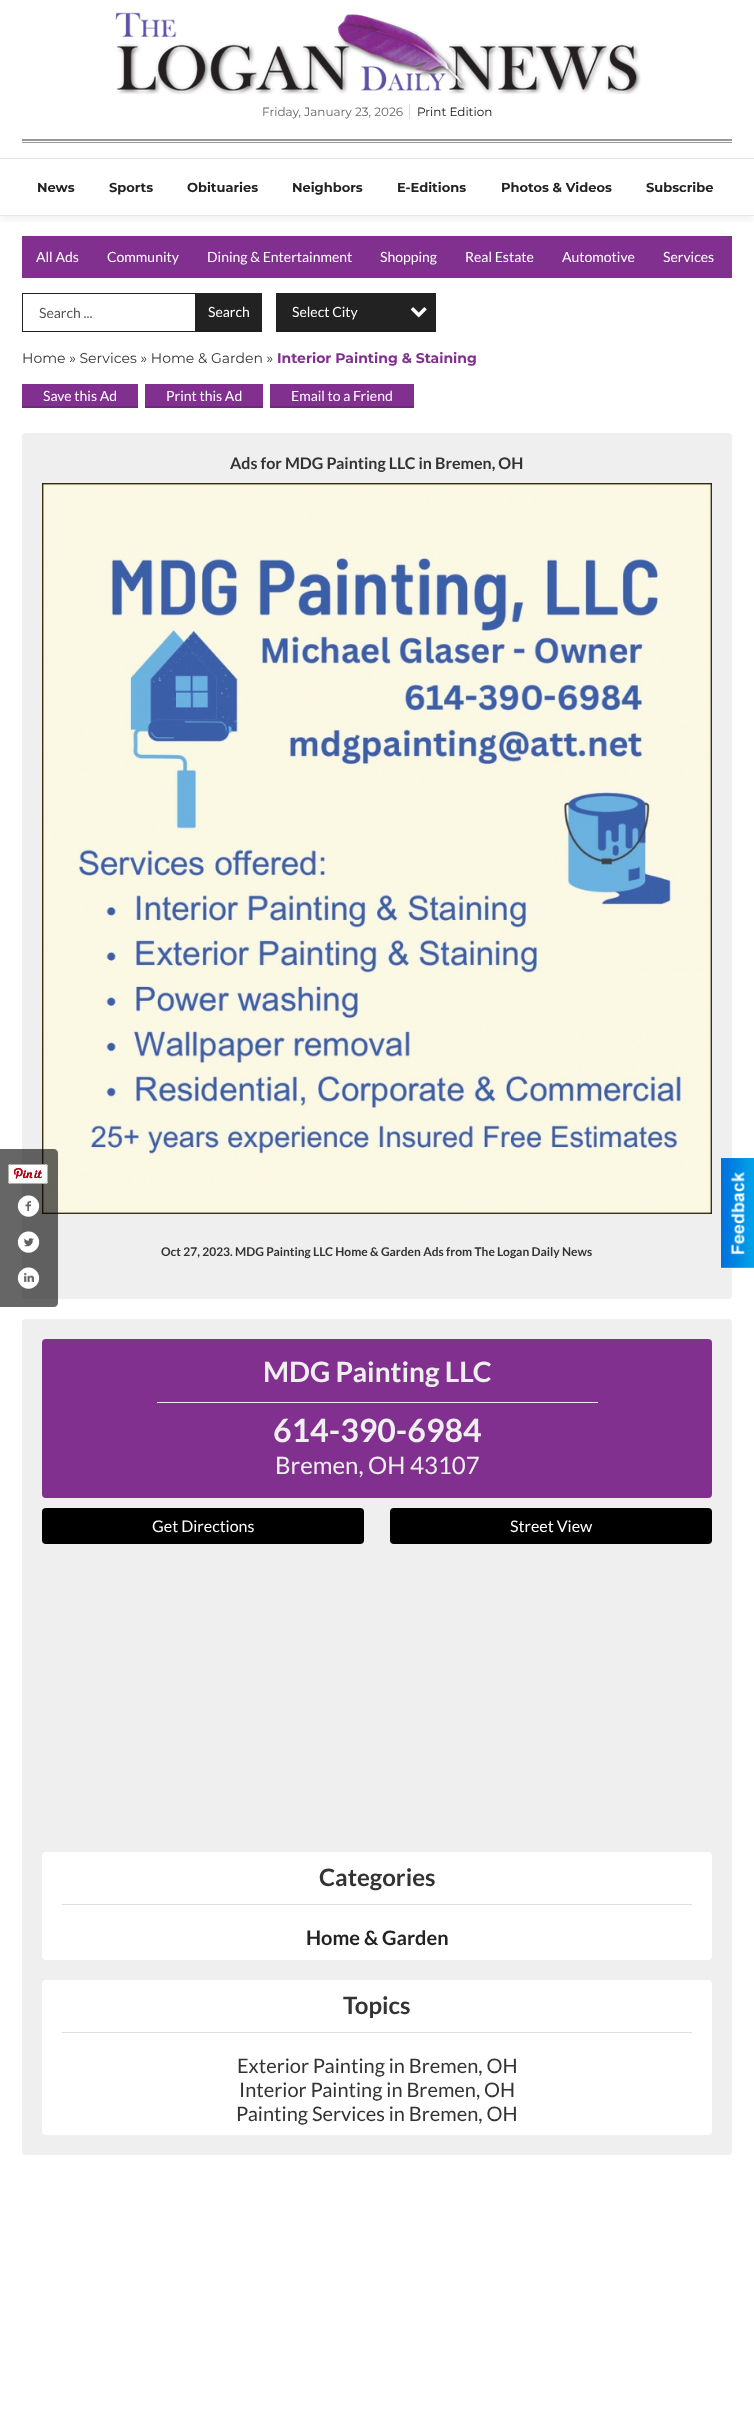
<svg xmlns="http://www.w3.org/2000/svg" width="754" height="2425">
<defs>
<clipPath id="clip1"><rect x="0" y="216" width="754" height="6"/></clipPath>
</defs>
<rect width="100%" height="100%" fill="#fff"/>
<image x="115" y="12" width="526" height="82" href="media/1.png"/>
<text x="262" y="116" style="font-family:Montserrat;font-size:12px;fill:#666">Friday, January 23, 2026</text>
<rect x="409" y="104" width="1" height="15" fill="#dadada"/>
<text x="417" y="116" style="font-family:Montserrat;font-size:12px;fill:#111">Print Edition</text>
<rect x="22" y="139" width="710" height="2" fill="#999"/>
<rect x="22" y="142" width="710" height="1" fill="#999"/>
<rect x="22" y="236" width="710" height="42" fill="#813090"/>
<g clip-path="url(#clip1)">
<rect y="163" width="754" height="58" fill="#0000000d" filter="blur(5px)"/>
</g>
<rect y="158" width="754" height="1" fill="#e6e6e6"/>
<rect y="215" width="754" height="1" fill="#e6e6e6"/>
<text x="37" y="192" style="font-family:Montserrat;font-size:13px;font-weight:bold;fill:#222">News</text>
<text x="109" y="192" style="font-family:Montserrat;font-size:13px;font-weight:bold;fill:#222">Sports</text>
<text x="187" y="192" style="font-family:Montserrat;font-size:13px;font-weight:bold;fill:#222">Obituaries</text>
<text x="292" y="192" style="font-family:Montserrat;font-size:13px;font-weight:bold;fill:#222">Neighbors</text>
<text x="397" y="192" style="font-family:Montserrat;font-size:13px;font-weight:bold;fill:#222">E-Editions</text>
<text x="501" y="192" style="font-family:Montserrat;font-size:13px;font-weight:bold;fill:#222">Photos &amp; Videos</text>
<text x="646" y="192" style="font-family:Montserrat;font-size:13px;font-weight:bold;fill:#222">Subscribe</text>
<text x="36" y="262" style="font-family:Lato;font-size:14px;fill:#fff">All Ads</text>
<text x="107" y="262" style="font-family:Lato;font-size:14px;fill:#fff">Community</text>
<text x="207" y="262" style="font-family:Lato;font-size:14px;fill:#fff">Dining &amp; Entertainment</text>
<text x="380" y="262" style="font-family:Lato;font-size:14px;fill:#fff">Shopping</text>
<text x="465" y="262" style="font-family:Lato;font-size:14px;fill:#fff">Real Estate</text>
<text x="562" y="262" style="font-family:Lato;font-size:14px;fill:#fff">Automotive</text>
<text x="663" y="262" style="font-family:Lato;font-size:14px;fill:#fff">Services</text>
<rect x="22.5" y="293.5" width="173" height="38" fill="none" stroke="#222"/>
<text x="39" y="318" style="font-family:Lato;font-size:14px;fill:#555">Search ...</text>
<rect x="196" y="293" width="66" height="37" fill="#222"/>
<rect x="196" y="330" width="66" height="2" fill="#1d1d1d"/>
<text x="208" y="317" style="font-family:Lato;font-size:14px;fill:#fff">Search</text>
<rect x="276" y="293" width="160" height="37" fill="#222"/>
<rect x="276" y="330" width="160" height="2" fill="#1d1d1d"/>
<text x="292" y="317" style="font-family:Lato;font-size:14px;fill:#fff">Select City</text>
<image x="410" y="307" width="17" height="11" href="media/2.png"/>
<text x="22" y="363" style="font-family:Montserrat;font-size:14px;fill:#333">Home » Services » Home &amp; Garden »</text>
<text x="277" y="363" style="font-family:Montserrat;font-size:14px;font-weight:bold;fill:#813090">Interior Painting &amp; Staining</text>
<rect x="22" y="384" width="116" height="22" fill="#813090"/>
<rect x="22" y="406" width="116" height="2" fill="#6e297a"/>
<text x="43" y="401" style="font-family:Lato;font-size:14px;fill:#fff">Save this Ad</text>
<rect x="145" y="384" width="118" height="22" fill="#813090"/>
<rect x="145" y="406" width="118" height="2" fill="#6e297a"/>
<text x="166" y="401" style="font-family:Lato;font-size:14px;fill:#fff">Print this Ad</text>
<rect x="270" y="384" width="144" height="22" fill="#813090"/>
<rect x="270" y="406" width="144" height="2" fill="#6e297a"/>
<text x="291" y="401" style="font-family:Lato;font-size:14px;fill:#fff">Email to a Friend</text>
<rect x="22" y="433" width="710" height="866" rx="4" fill="#efefef"/>
<text x="230" y="469" style="font-family:Lato;font-size:16px;font-weight:bold;fill:#333">Ads for MDG Painting LLC in Bremen, OH</text>
<image x="42" y="483" width="670" height="731" href="media/3.png"/>
<text x="161" y="1256" style="font-family:Lato;font-size:12px;font-weight:bold;fill:#333">Oct 27, 2023. MDG Painting LLC Home &amp; Garden Ads from The Logan Daily News</text>
<rect x="22" y="1319" width="710" height="836" rx="4" fill="#efefef"/>
<rect x="42" y="1339" width="670" height="159" rx="4" fill="#813090"/>
<text x="263" y="1382" style="font-family:Lato;font-size:28px;font-weight:bold;fill:#efefef">MDG Painting LLC</text>
<rect x="157" y="1402" width="441" height="1" fill="#efefef"/>
<text x="273" y="1442" style="font-family:Lato;font-size:32px;font-weight:bold;fill:#efefef">614-390-6984</text>
<text x="275" y="1474" style="font-family:Lato;font-size:24px;fill:#efefef">Bremen, OH 43107</text>
<rect x="42" y="1508" width="322" height="36" rx="4" fill="#000"/>
<text x="152" y="1532" style="font-family:Lato;font-size:16px;fill:#fff">Get Directions</text>
<rect x="390" y="1508" width="322" height="36" rx="4" fill="#000"/>
<text x="510" y="1532" style="font-family:Lato;font-size:16px;fill:#fff">Street View</text>
<rect x="42" y="1852" width="670" height="108" rx="4" fill="#fff"/>
<rect x="62" y="1904" width="630" height="1" fill="#dfdfdf"/>
<text x="319" y="1886" style="font-family:Lato;font-size:24px;font-weight:bold;fill:#333">Categories</text>
<text x="306" y="1945" style="font-family:Lato;font-size:20px;font-weight:bold;fill:#222">Home &amp; Garden</text>
<rect x="42" y="1980" width="670" height="155" rx="4" fill="#fff"/>
<rect x="62" y="2032" width="630" height="1" fill="#dfdfdf"/>
<text x="343" y="2014" style="font-family:Lato;font-size:24px;font-weight:bold;fill:#333">Topics</text>
<text x="237" y="2073" style="font-family:Lato;font-size:20px;fill:#333">Exterior Painting in Bremen, OH</text>
<text x="239" y="2097" style="font-family:Lato;font-size:20px;fill:#333">Interior Painting in Bremen, OH</text>
<text x="236" y="2121" style="font-family:Lato;font-size:20px;fill:#333">Painting Services in Bremen, OH</text>
<path d="M0 1149h54c2 0 4 2 4 4v150c0 2-2 4-4 4h-54z" fill="#00000099"/>
<image x="8" y="1164" width="40" height="20" href="media/4.png"/>
<image x="17" y="1195" width="23" height="22" href="media/5.png"/>
<image x="17" y="1231" width="23" height="22" href="media/6.png"/>
<image x="17" y="1267" width="23" height="22" href="media/7.png"/>
<image x="721" y="1158" width="33" height="110" href="media/8.png"/>
</svg>
